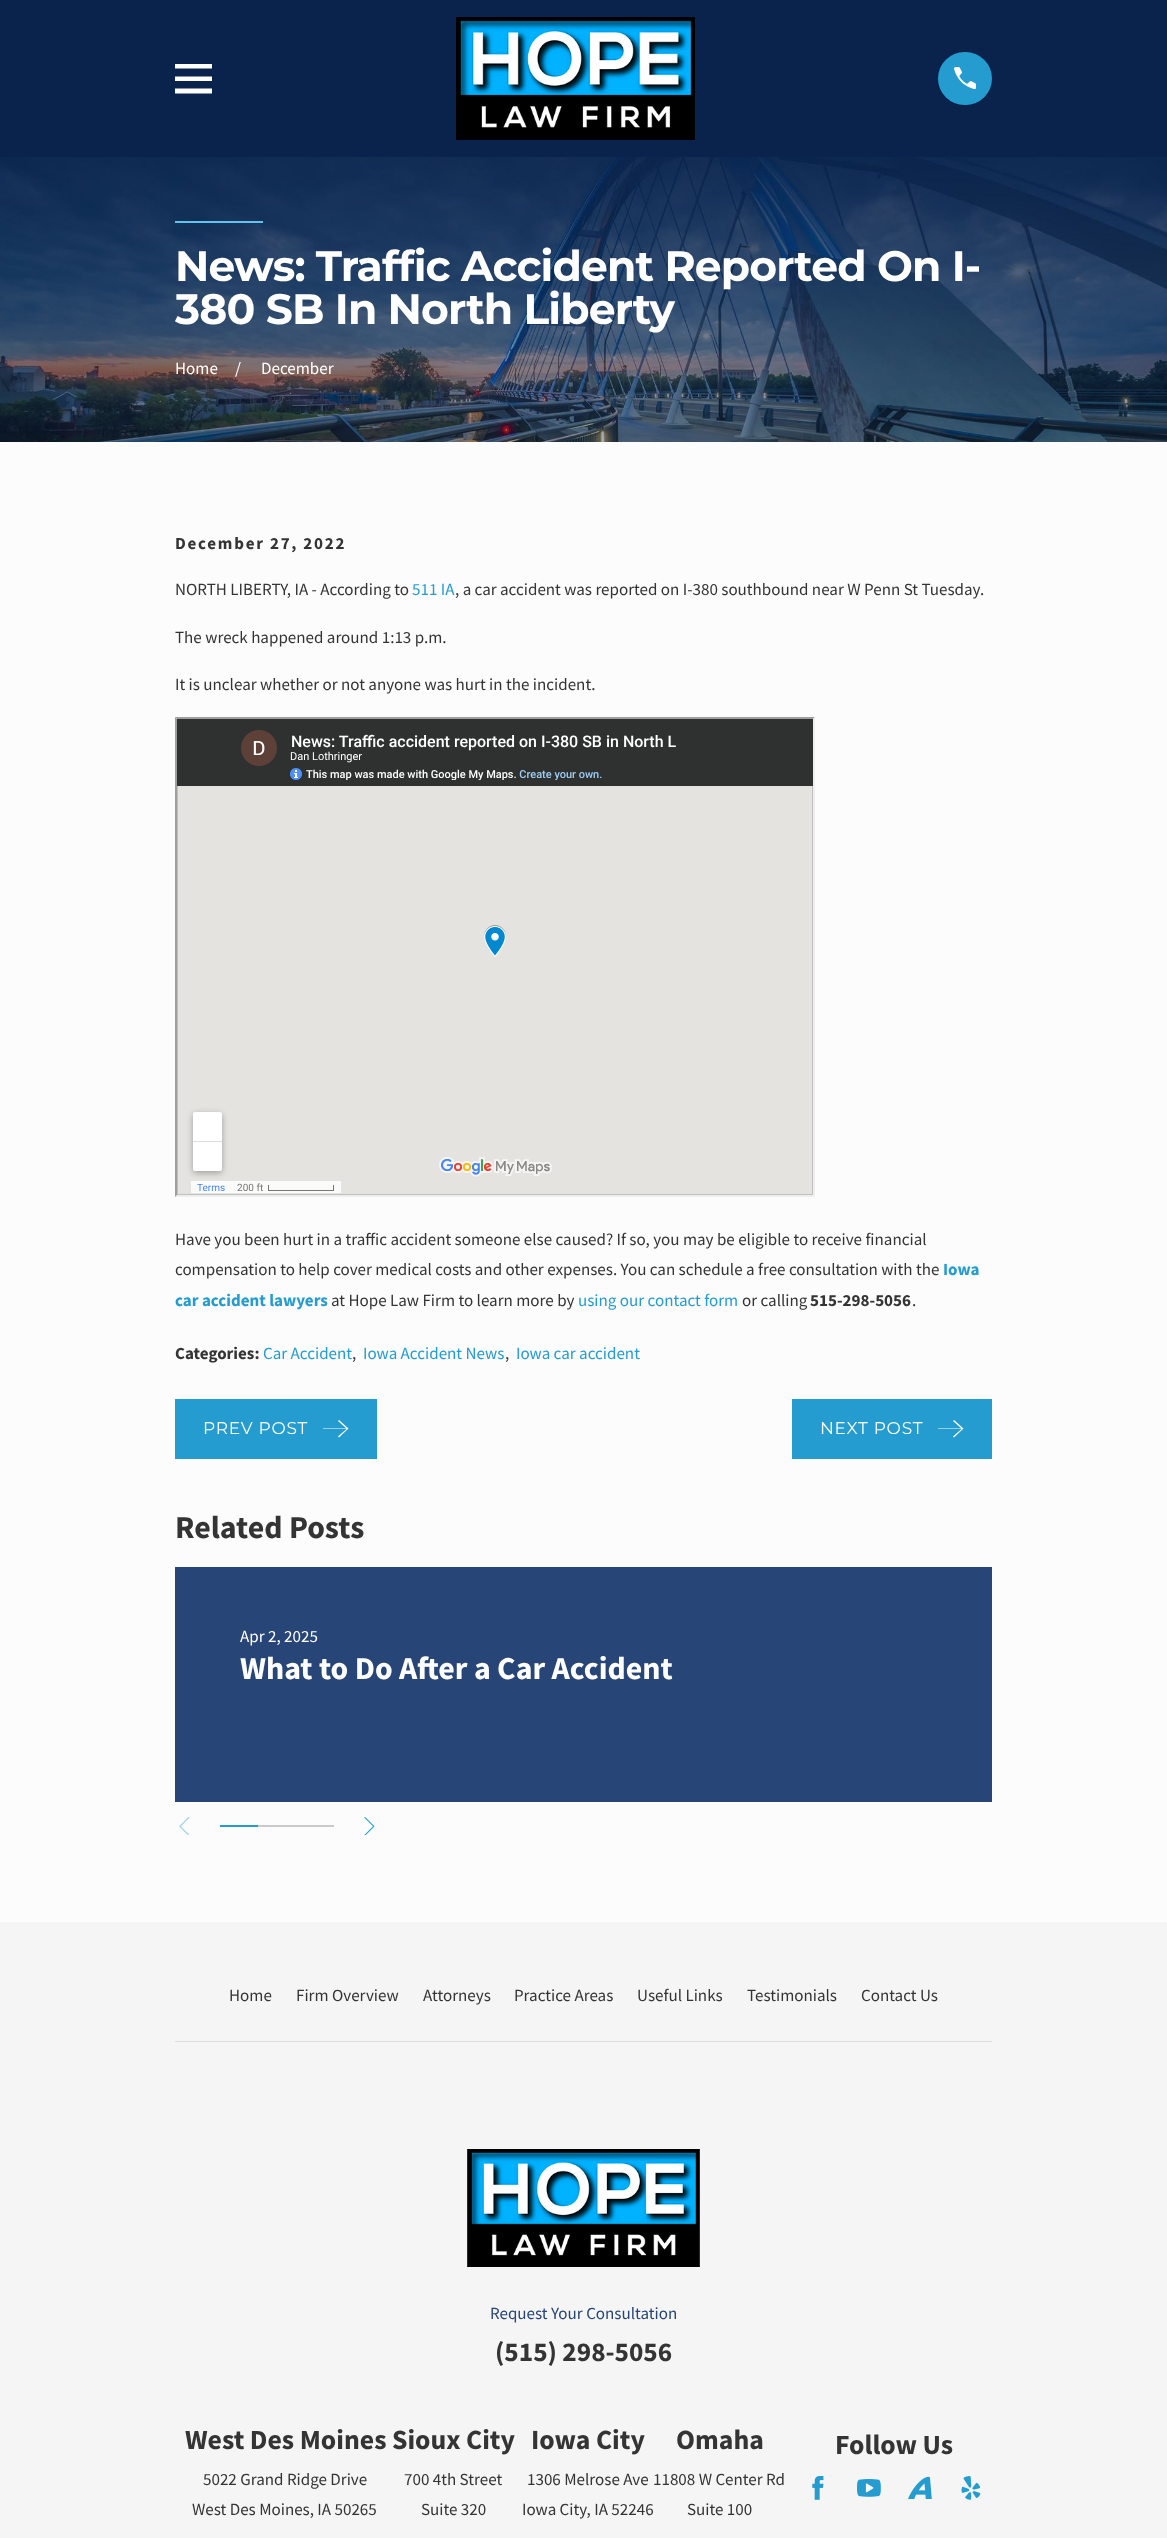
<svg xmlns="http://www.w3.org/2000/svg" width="1167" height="2538">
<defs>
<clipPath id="clip1"><rect x="175" y="60" width="37" height="37"/></clipPath>
</defs>
<rect width="100%" height="100%" fill="#fcfcfc"/>
<rect width="1167" height="157" fill="#09234c"/>
<g clip-path="url(#clip1)">
<path d="M175 64v4.5h37.5v-4.5zm0 12.5v4.5h37.5v-4.5zm0 12v5h37.5v-5z" fill="#fff"/>
</g>
<image x="456" y="17" width="239" height="123" href="media/1.png"/>
<rect x="938" y="52" width="54" height="53" rx="26.5" fill="#249ccf"/>
<image x="954" y="67" width="22" height="22" href="media/2.png"/>
<image x="0" y="157" width="1167" height="285" href="media/3.png"/>
<rect x="175" y="221" width="88" height="2" fill="#64c3ec"/>
<text x="175" y="281" style="font-family:Montserrat;font-size:42.5px;font-weight:bold;letter-spacing:-0.85px;fill:#fff">News: Traffic Accident Reported On I-</text>
<text x="175" y="324" style="font-family:Montserrat;font-size:42.5px;font-weight:bold;letter-spacing:-0.85px;fill:#fff">380 SB In North Liberty</text>
<text x="175" y="374" style="font-family:Source Sans Pro;font-size:17px;fill:#fff">Home</text>
<text x="235" y="374" style="font-family:Source Sans Pro;font-size:17px;fill:#fff">/</text>
<text x="261" y="374" style="font-family:Source Sans Pro;font-size:17px;fill:#fff">December</text>
<text x="175" y="549" style="font-family:Source Sans Pro;font-size:17px;font-weight:bold;letter-spacing:1.75px;fill:#343434">December 27, 2022</text>
<text x="175" y="595" style="font-family:Source Sans Pro;font-size:17px;fill:#343434">NORTH LIBERTY, IA - According to</text>
<text x="412" y="595" style="font-family:Source Sans Pro;font-size:17px;fill:#249ccf">511 IA</text>
<text x="455" y="595" style="font-family:Source Sans Pro;font-size:17px;fill:#343434">, a car accident was reported on I-380 southbound near W Penn St Tuesday.</text>
<text x="175" y="643" style="font-family:Source Sans Pro;font-size:17px;fill:#343434">The wreck happened around 1:13 p.m.</text>
<text x="175" y="690" style="font-family:Source Sans Pro;font-size:17px;fill:#343434">It is unclear whether or not anyone was hurt in the incident.</text>
<path d="M175 717h640l-2 2h-636z" fill="#9f9f9f"/>
<path d="M815 717v480l-2-2v-476z" fill="#eee"/>
<path d="M815 1197h-640l2-2h636z" fill="#eee"/>
<path d="M175 1197v-480l2 2v476z" fill="#9f9f9f"/>
<image x="177" y="719" width="636" height="476" href="media/4.png"/>
<text x="175" y="1245" style="font-family:Source Sans Pro;font-size:17px;fill:#343434">Have you been hurt in a traffic accident someone else caused? If so, you may be eligible to receive financial</text>
<text x="175" y="1275" style="font-family:Source Sans Pro;font-size:17px;fill:#343434">compensation to help cover medical costs and other expenses. You can schedule a free consultation with the</text>
<text x="943" y="1275" style="font-family:Source Sans Pro;font-size:17px;font-weight:bold;fill:#249ccf">Iowa</text>
<text x="175" y="1306" style="font-family:Source Sans Pro;font-size:17px;font-weight:bold;fill:#249ccf">car accident lawyers</text>
<text x="331" y="1306" style="font-family:Source Sans Pro;font-size:17px;fill:#343434">at Hope Law Firm to learn more by</text>
<text x="578" y="1306" style="font-family:Source Sans Pro;font-size:17px;fill:#249ccf">using our contact form</text>
<text x="742" y="1306" style="font-family:Source Sans Pro;font-size:17px;fill:#343434">or calling</text>
<text x="810" y="1306" style="font-family:Source Sans Pro;font-size:17px;font-weight:bold;fill:#343434">515-298-5056</text>
<text x="912" y="1306" style="font-family:Source Sans Pro;font-size:17px;fill:#343434">.</text>
<text x="175" y="1359" style="font-family:Source Sans Pro;font-size:17px;font-weight:bold;fill:#343434">Categories:</text>
<text x="263" y="1359" style="font-family:Source Sans Pro;font-size:17px;fill:#249ccf">Car Accident</text>
<text x="352" y="1359" style="font-family:Source Sans Pro;font-size:17px;fill:#343434">,</text>
<text x="363" y="1359" style="font-family:Source Sans Pro;font-size:17px;fill:#249ccf">Iowa Accident News</text>
<text x="505" y="1359" style="font-family:Source Sans Pro;font-size:17px;fill:#343434">,</text>
<text x="516" y="1359" style="font-family:Source Sans Pro;font-size:17px;fill:#249ccf">Iowa car accident</text>
<rect x="175" y="1399" width="202" height="60" fill="#249ccf"/>
<text x="203" y="1434" style="font-family:Montserrat;font-size:17px;letter-spacing:0.75px;fill:#fff">PREV POST</text>
<path d="M338 1436.5l1 1l9.5-9l-9.5-8.5l-1 1l8.5 7.5h-23.5v.5h23.5z" fill="#fff"/>
<rect x="792" y="1399" width="200" height="60" fill="#249ccf"/>
<text x="820" y="1434" style="font-family:Montserrat;font-size:17px;letter-spacing:0.75px;fill:#fff">NEXT POST</text>
<path d="M953 1436.5l1 1l9.5-9l-9.5-8.5l-1 1l8.5 7.5h-23.5v.5h23.5z" fill="#fff"/>
<text x="175" y="1538" style="font-family:Source Sans Pro;font-size:31.9px;font-weight:bold;fill:#343434">Related Posts</text>
<rect x="175" y="1567" width="817" height="235" fill="#274576"/>
<text x="240" y="1642" style="font-family:Source Sans Pro;font-size:17px;fill:#fff">Apr 2, 2025</text>
<text x="240" y="1679" style="font-family:Source Sans Pro;font-size:31.9px;font-weight:bold;fill:#fff">What to Do After a Car Accident</text>
<image x="179" y="1817" width="11" height="18" href="media/5.png"/>
<rect x="220" y="1825" width="38" height="2" fill="#249ccf"/>
<rect x="258" y="1825" width="76" height="2" fill="#cacaca"/>
<image x="364" y="1817" width="11" height="18" href="media/6.png"/>
<rect y="1922" width="1167" height="616" fill="#f5f5f5"/>
<rect x="175" y="2041" width="817" height="1" fill="#ddd"/>
<text x="229" y="2001" style="font-family:Source Sans Pro;font-size:17px;fill:#343434">Home</text>
<text x="296" y="2001" style="font-family:Source Sans Pro;font-size:17px;fill:#343434">Firm Overview</text>
<text x="423" y="2001" style="font-family:Source Sans Pro;font-size:17px;fill:#343434">Attorneys</text>
<text x="514" y="2001" style="font-family:Source Sans Pro;font-size:17px;fill:#343434">Practice Areas</text>
<text x="637" y="2001" style="font-family:Source Sans Pro;font-size:17px;fill:#343434">Useful Links</text>
<text x="747" y="2001" style="font-family:Source Sans Pro;font-size:17px;fill:#343434">Testimonials</text>
<text x="861" y="2001" style="font-family:Source Sans Pro;font-size:17px;fill:#343434">Contact Us</text>
<image x="467" y="2149" width="233" height="118" href="media/7.png"/>
<text x="490" y="2319" style="font-family:Source Sans Pro;font-size:17px;fill:#274576">Request Your Consultation</text>
<text x="495" y="2361" style="font-family:Source Sans Pro;font-size:27.25px;font-weight:bold;fill:#343434">(515) 298-5056</text>
<text x="185" y="2449" style="font-family:Source Sans Pro;font-size:27.75px;font-weight:bold;fill:#343434">West Des Moines</text>
<text x="203" y="2485" style="font-family:Source Sans Pro;font-size:17px;fill:#343434">5022 Grand Ridge Drive</text>
<text x="192" y="2515" style="font-family:Source Sans Pro;font-size:17px;fill:#343434">West Des Moines, IA 50265</text>
<text x="392" y="2449" style="font-family:Source Sans Pro;font-size:27.75px;font-weight:bold;fill:#343434">Sioux City</text>
<text x="404" y="2485" style="font-family:Source Sans Pro;font-size:17px;fill:#343434">700 4th Street</text>
<text x="421" y="2515" style="font-family:Source Sans Pro;font-size:17px;fill:#343434">Suite 320</text>
<text x="531" y="2449" style="font-family:Source Sans Pro;font-size:27.75px;font-weight:bold;fill:#343434">Iowa City</text>
<text x="527" y="2485" style="font-family:Source Sans Pro;font-size:17px;fill:#343434">1306 Melrose Ave</text>
<text x="522" y="2515" style="font-family:Source Sans Pro;font-size:17px;fill:#343434">Iowa City, IA 52246</text>
<text x="676" y="2449" style="font-family:Source Sans Pro;font-size:27.75px;font-weight:bold;fill:#343434">Omaha</text>
<text x="653" y="2485" style="font-family:Source Sans Pro;font-size:17px;fill:#343434">11808 W Center Rd</text>
<text x="687" y="2515" style="font-family:Source Sans Pro;font-size:17px;fill:#343434">Suite 100</text>
<text x="835" y="2454" style="font-family:Source Sans Pro;font-size:27.75px;font-weight:bold;fill:#343434">Follow Us</text>
<image x="812" y="2476" width="12" height="24" href="media/8.png"/>
<image x="857" y="2479" width="24" height="18" href="media/9.png"/>
<image x="908" y="2476" width="24" height="23" href="media/10.png"/>
<image x="961" y="2476" width="20" height="24" href="media/11.png"/>
</svg>
